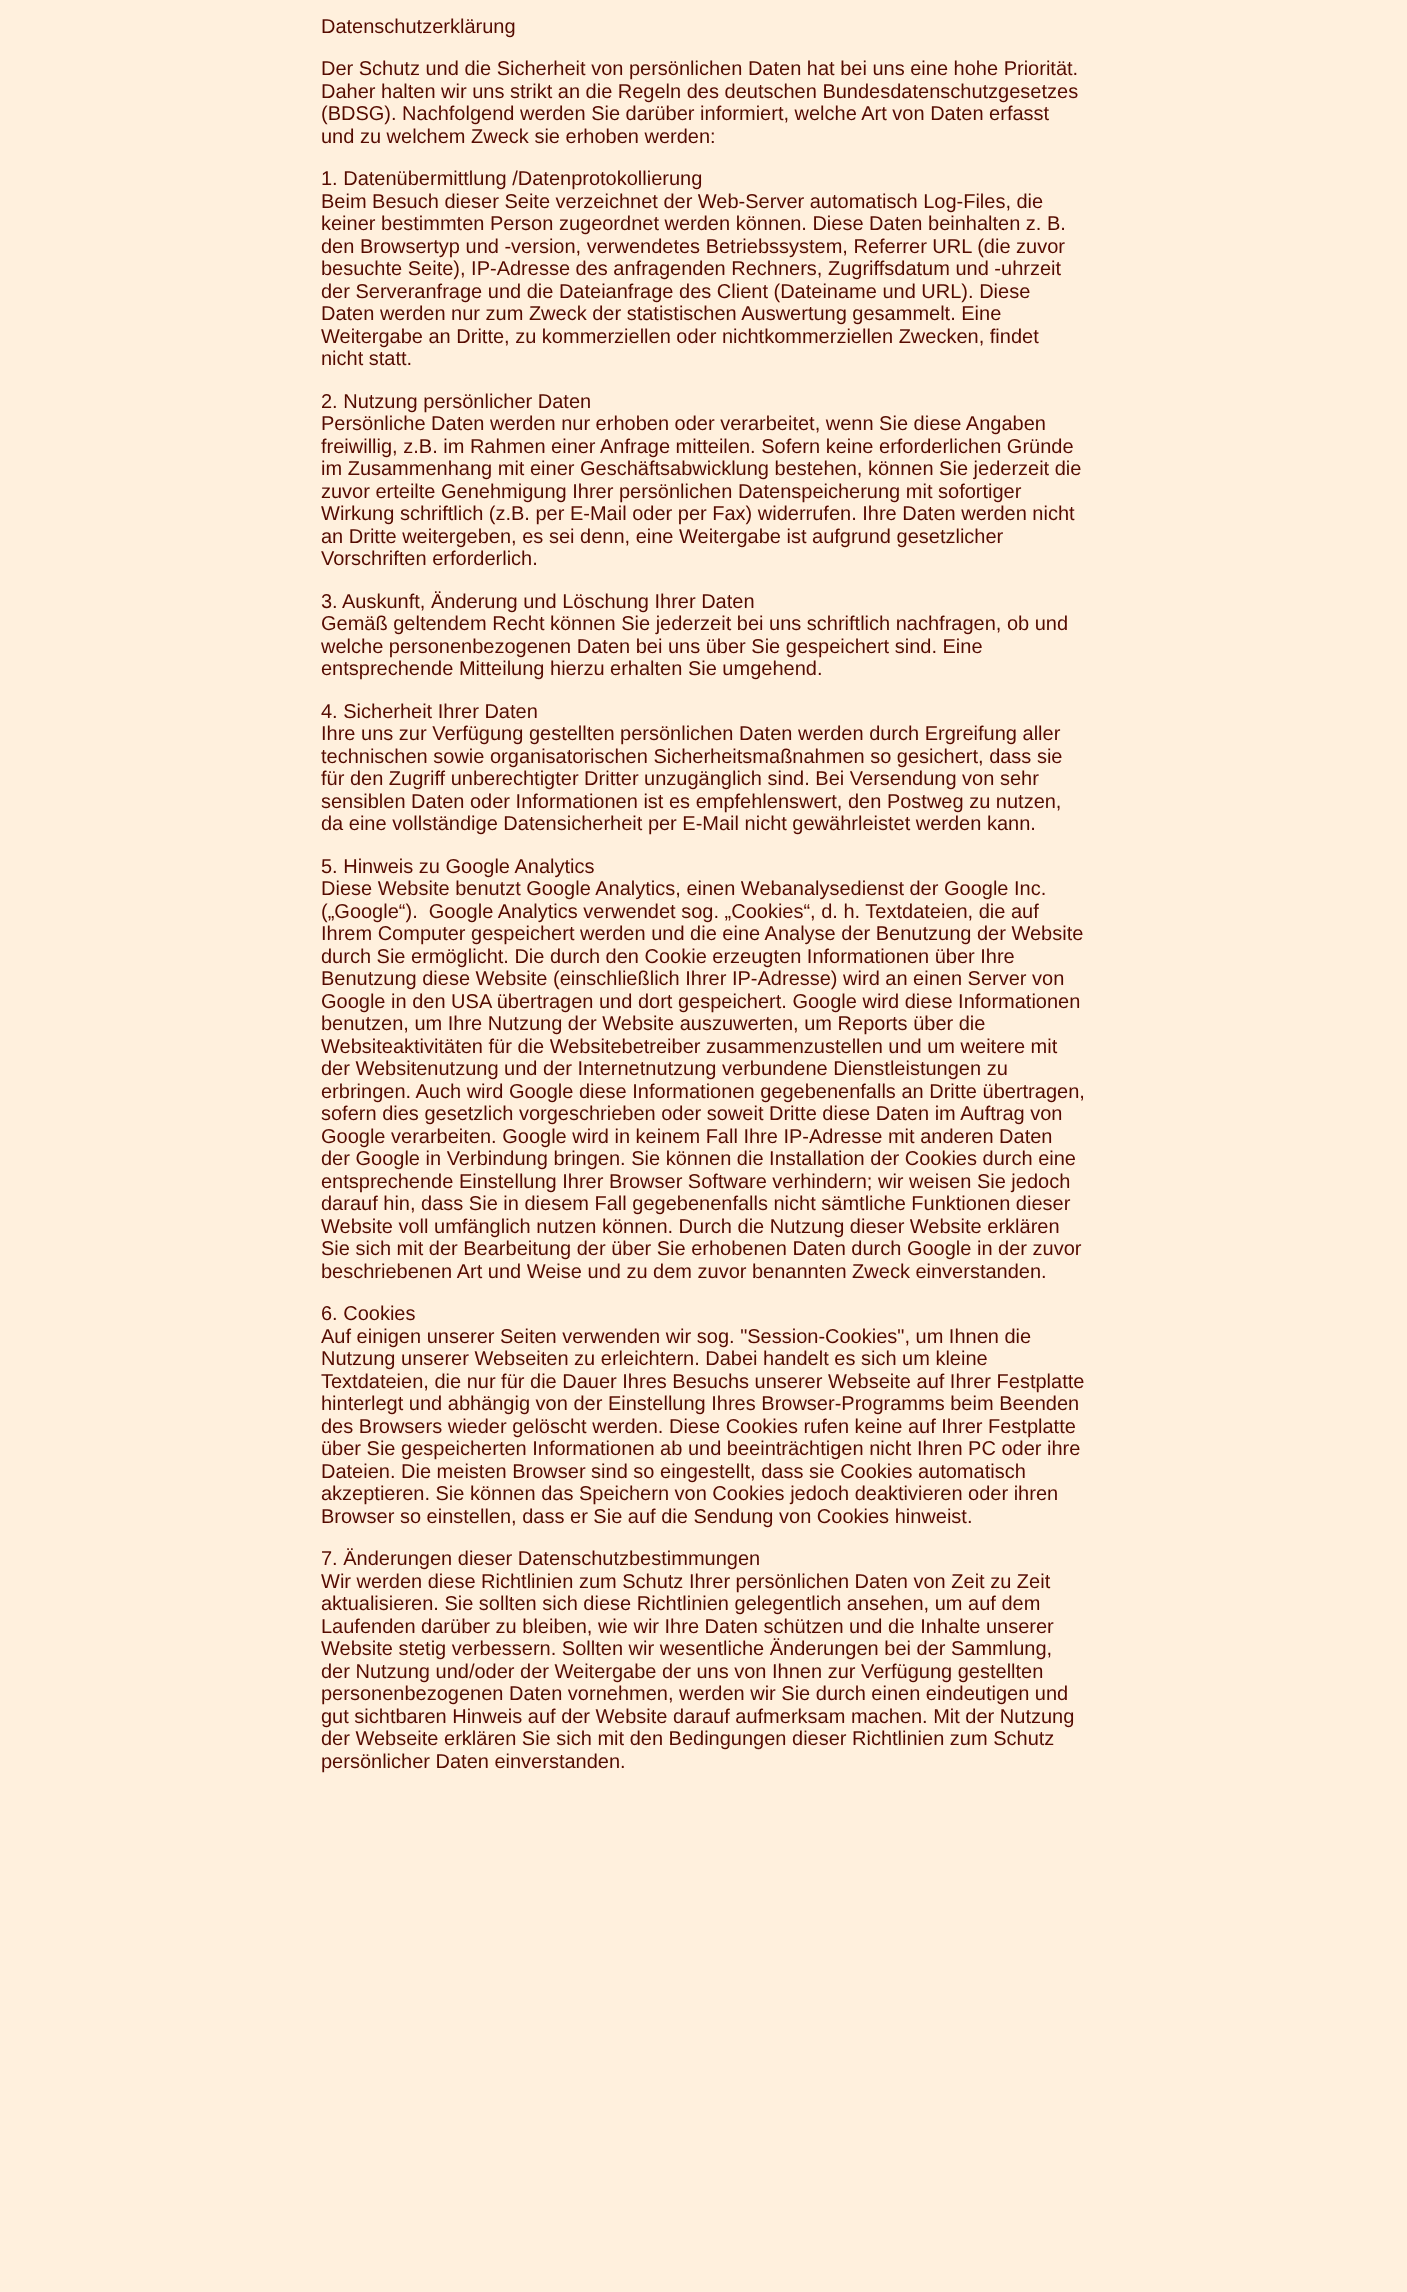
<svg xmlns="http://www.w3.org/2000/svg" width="1407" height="2292">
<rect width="100%" height="100%" fill="#fff0dd"/>
<text x="321" y="33" style="font-family:Liberation Sans;font-size:20px;fill:#550b00">Datenschutzerklärung</text>
<text x="321" y="75" style="font-family:Liberation Sans;font-size:20px;fill:#550b00">Der Schutz und die Sicherheit von persönlichen Daten hat bei uns eine hohe Priorität.</text>
<text x="321" y="98" style="font-family:Liberation Sans;font-size:20px;fill:#550b00">Daher halten wir uns strikt an die Regeln des deutschen Bundesdatenschutzgesetzes</text>
<text x="321" y="120" style="font-family:Liberation Sans;font-size:20px;fill:#550b00">(BDSG). Nachfolgend werden Sie darüber informiert, welche Art von Daten erfasst</text>
<text x="321" y="143" style="font-family:Liberation Sans;font-size:20px;fill:#550b00">und zu welchem Zweck sie erhoben werden:</text>
<text x="321" y="185" style="font-family:Liberation Sans;font-size:20px;fill:#550b00">1. Datenübermittlung /Datenprotokollierung</text>
<text x="321" y="208" style="font-family:Liberation Sans;font-size:20px;fill:#550b00">Beim Besuch dieser Seite verzeichnet der Web-Server automatisch Log-Files, die</text>
<text x="321" y="230" style="font-family:Liberation Sans;font-size:20px;fill:#550b00">keiner bestimmten Person zugeordnet werden können. Diese Daten beinhalten z. B.</text>
<text x="321" y="253" style="font-family:Liberation Sans;font-size:20px;fill:#550b00">den Browsertyp und -version, verwendetes Betriebssystem, Referrer URL (die zuvor</text>
<text x="321" y="275" style="font-family:Liberation Sans;font-size:20px;fill:#550b00">besuchte Seite), IP-Adresse des anfragenden Rechners, Zugriffsdatum und -uhrzeit</text>
<text x="321" y="298" style="font-family:Liberation Sans;font-size:20px;fill:#550b00">der Serveranfrage und die Dateianfrage des Client (Dateiname und URL). Diese</text>
<text x="321" y="320" style="font-family:Liberation Sans;font-size:20px;fill:#550b00">Daten werden nur zum Zweck der statistischen Auswertung gesammelt. Eine</text>
<text x="321" y="343" style="font-family:Liberation Sans;font-size:20px;fill:#550b00">Weitergabe an Dritte, zu kommerziellen oder nichtkommerziellen Zwecken, findet</text>
<text x="321" y="365" style="font-family:Liberation Sans;font-size:20px;fill:#550b00">nicht statt.</text>
<text x="321" y="408" style="font-family:Liberation Sans;font-size:20px;fill:#550b00">2. Nutzung persönlicher Daten</text>
<text x="321" y="430" style="font-family:Liberation Sans;font-size:20px;fill:#550b00">Persönliche Daten werden nur erhoben oder verarbeitet, wenn Sie diese Angaben</text>
<text x="321" y="453" style="font-family:Liberation Sans;font-size:20px;fill:#550b00">freiwillig, z.B. im Rahmen einer Anfrage mitteilen. Sofern keine erforderlichen Gründe</text>
<text x="321" y="475" style="font-family:Liberation Sans;font-size:20px;fill:#550b00">im Zusammenhang mit einer Geschäftsabwicklung bestehen, können Sie jederzeit die</text>
<text x="321" y="498" style="font-family:Liberation Sans;font-size:20px;fill:#550b00">zuvor erteilte Genehmigung Ihrer persönlichen Datenspeicherung mit sofortiger</text>
<text x="321" y="520" style="font-family:Liberation Sans;font-size:20px;fill:#550b00">Wirkung schriftlich (z.B. per E-Mail oder per Fax) widerrufen. Ihre Daten werden nicht</text>
<text x="321" y="543" style="font-family:Liberation Sans;font-size:20px;fill:#550b00">an Dritte weitergeben, es sei denn, eine Weitergabe ist aufgrund gesetzlicher</text>
<text x="321" y="565" style="font-family:Liberation Sans;font-size:20px;fill:#550b00">Vorschriften erforderlich.</text>
<text x="321" y="608" style="font-family:Liberation Sans;font-size:20px;fill:#550b00">3.</text>
<text x="342" y="608" style="font-family:Liberation Sans;font-size:20px;fill:#550b00">Auskunft, Änderung und Löschung Ihrer Daten</text>
<text x="321" y="630" style="font-family:Liberation Sans;font-size:20px;fill:#550b00">Gemäß geltendem Recht können Sie jederzeit bei uns schriftlich nachfragen, ob und</text>
<text x="321" y="653" style="font-family:Liberation Sans;font-size:20px;fill:#550b00">welche personenbezogenen Daten bei uns über Sie gespeichert sind. Eine</text>
<text x="321" y="675" style="font-family:Liberation Sans;font-size:20px;fill:#550b00">entsprechende Mitteilung hierzu erhalten Sie umgehend.</text>
<text x="321" y="718" style="font-family:Liberation Sans;font-size:20px;fill:#550b00">4. Sicherheit Ihrer Daten</text>
<text x="321" y="740" style="font-family:Liberation Sans;font-size:20px;fill:#550b00">Ihre uns zur Verfügung gestellten persönlichen Daten werden durch Ergreifung aller</text>
<text x="321" y="763" style="font-family:Liberation Sans;font-size:20px;fill:#550b00">technischen sowie organisatorischen Sicherheitsmaßnahmen so gesichert, dass sie</text>
<text x="321" y="785" style="font-family:Liberation Sans;font-size:20px;fill:#550b00">für den Zugriff unberechtigter Dritter unzugänglich sind. Bei Versendung von sehr</text>
<text x="321" y="808" style="font-family:Liberation Sans;font-size:20px;fill:#550b00">sensiblen Daten oder Informationen ist es empfehlenswert, den Postweg zu nutzen,</text>
<text x="321" y="830" style="font-family:Liberation Sans;font-size:20px;fill:#550b00">da eine vollständige Datensicherheit per E-Mail nicht gewährleistet werden kann.</text>
<text x="321" y="873" style="font-family:Liberation Sans;font-size:20px;fill:#550b00">5. Hinweis zu Google Analytics</text>
<text x="321" y="895" style="font-family:Liberation Sans;font-size:20px;fill:#550b00">Diese Website benutzt Google Analytics, einen Webanalysedienst der Google Inc.</text>
<text x="321" y="918" style="font-family:Liberation Sans;font-size:20px;fill:#550b00" xml:space="preserve">(„Google“).  Google Analytics verwendet sog. „Cookies“, d. h. Textdateien, die auf</text>
<text x="321" y="940" style="font-family:Liberation Sans;font-size:20px;fill:#550b00">Ihrem Computer gespeichert werden und die eine Analyse der Benutzung der Website</text>
<text x="321" y="963" style="font-family:Liberation Sans;font-size:20px;fill:#550b00">durch Sie ermöglicht. Die durch den Cookie erzeugten Informationen über Ihre</text>
<text x="321" y="985" style="font-family:Liberation Sans;font-size:20px;fill:#550b00">Benutzung diese Website (einschließlich Ihrer IP-Adresse) wird an einen Server von</text>
<text x="321" y="1008" style="font-family:Liberation Sans;font-size:20px;fill:#550b00">Google in den USA übertragen und dort gespeichert. Google wird diese Informationen</text>
<text x="321" y="1030" style="font-family:Liberation Sans;font-size:20px;fill:#550b00">benutzen, um Ihre Nutzung der Website auszuwerten, um Reports über die</text>
<text x="321" y="1053" style="font-family:Liberation Sans;font-size:20px;fill:#550b00">Websiteaktivitäten für die Websitebetreiber zusammenzustellen und um weitere mit</text>
<text x="321" y="1075" style="font-family:Liberation Sans;font-size:20px;fill:#550b00">der Websitenutzung und der Internetnutzung verbundene Dienstleistungen zu</text>
<text x="321" y="1098" style="font-family:Liberation Sans;font-size:20px;fill:#550b00">erbringen. Auch wird Google diese Informationen gegebenenfalls an Dritte übertragen,</text>
<text x="321" y="1120" style="font-family:Liberation Sans;font-size:20px;fill:#550b00">sofern dies gesetzlich vorgeschrieben oder soweit Dritte diese Daten im Auftrag von</text>
<text x="321" y="1143" style="font-family:Liberation Sans;font-size:20px;fill:#550b00">Google verarbeiten. Google wird in keinem Fall Ihre IP-Adresse mit anderen Daten</text>
<text x="321" y="1165" style="font-family:Liberation Sans;font-size:20px;fill:#550b00">der Google in Verbindung bringen. Sie können die Installation der Cookies durch eine</text>
<text x="321" y="1188" style="font-family:Liberation Sans;font-size:20px;fill:#550b00">entsprechende Einstellung Ihrer Browser Software verhindern; wir weisen Sie jedoch</text>
<text x="321" y="1210" style="font-family:Liberation Sans;font-size:20px;fill:#550b00">darauf hin, dass Sie in diesem Fall gegebenenfalls nicht sämtliche Funktionen dieser</text>
<text x="321" y="1233" style="font-family:Liberation Sans;font-size:20px;fill:#550b00">Website voll umfänglich nutzen können. Durch die Nutzung dieser Website erklären</text>
<text x="321" y="1255" style="font-family:Liberation Sans;font-size:20px;fill:#550b00">Sie sich mit der Bearbeitung der über Sie erhobenen Daten durch Google in der zuvor</text>
<text x="321" y="1278" style="font-family:Liberation Sans;font-size:20px;fill:#550b00">beschriebenen Art und Weise und zu dem zuvor benannten Zweck einverstanden.</text>
<text x="321" y="1320" style="font-family:Liberation Sans;font-size:20px;fill:#550b00">6. Cookies</text>
<text x="321" y="1343" style="font-family:Liberation Sans;font-size:20px;fill:#550b00">Auf einigen unserer Seiten verwenden wir sog. "Session-Cookies", um Ihnen die</text>
<text x="321" y="1365" style="font-family:Liberation Sans;font-size:20px;fill:#550b00">Nutzung unserer Webseiten zu erleichtern. Dabei handelt es sich um kleine</text>
<text x="321" y="1388" style="font-family:Liberation Sans;font-size:20px;fill:#550b00">Textdateien, die nur für die Dauer Ihres Besuchs unserer Webseite auf Ihrer Festplatte</text>
<text x="321" y="1410" style="font-family:Liberation Sans;font-size:20px;fill:#550b00">hinterlegt und abhängig von der Einstellung Ihres Browser-Programms beim Beenden</text>
<text x="321" y="1433" style="font-family:Liberation Sans;font-size:20px;fill:#550b00">des Browsers wieder gelöscht werden. Diese Cookies rufen keine auf Ihrer Festplatte</text>
<text x="321" y="1455" style="font-family:Liberation Sans;font-size:20px;fill:#550b00">über Sie gespeicherten Informationen ab und beeinträchtigen nicht Ihren PC oder ihre</text>
<text x="321" y="1478" style="font-family:Liberation Sans;font-size:20px;fill:#550b00">Dateien. Die meisten Browser sind so eingestellt, dass sie Cookies automatisch</text>
<text x="321" y="1500" style="font-family:Liberation Sans;font-size:20px;fill:#550b00">akzeptieren. Sie können das Speichern von Cookies jedoch deaktivieren oder ihren</text>
<text x="321" y="1523" style="font-family:Liberation Sans;font-size:20px;fill:#550b00">Browser so einstellen, dass er Sie auf die Sendung von Cookies hinweist.</text>
<text x="321" y="1565" style="font-family:Liberation Sans;font-size:20px;fill:#550b00">7. Änderungen dieser Datenschutzbestimmungen</text>
<text x="321" y="1588" style="font-family:Liberation Sans;font-size:20px;fill:#550b00">Wir werden diese Richtlinien zum Schutz Ihrer persönlichen Daten von Zeit zu Zeit</text>
<text x="321" y="1610" style="font-family:Liberation Sans;font-size:20px;fill:#550b00">aktualisieren. Sie sollten sich diese Richtlinien gelegentlich ansehen, um auf dem</text>
<text x="321" y="1633" style="font-family:Liberation Sans;font-size:20px;fill:#550b00">Laufenden darüber zu bleiben, wie wir Ihre Daten schützen und die Inhalte unserer</text>
<text x="321" y="1655" style="font-family:Liberation Sans;font-size:20px;fill:#550b00">Website stetig verbessern. Sollten wir wesentliche Änderungen bei der Sammlung,</text>
<text x="321" y="1678" style="font-family:Liberation Sans;font-size:20px;fill:#550b00">der Nutzung und/oder der Weitergabe der uns von Ihnen zur Verfügung gestellten</text>
<text x="321" y="1700" style="font-family:Liberation Sans;font-size:20px;fill:#550b00">personenbezogenen Daten vornehmen, werden wir Sie durch einen eindeutigen und</text>
<text x="321" y="1723" style="font-family:Liberation Sans;font-size:20px;fill:#550b00">gut sichtbaren Hinweis auf der Website darauf aufmerksam machen. Mit der Nutzung</text>
<text x="321" y="1745" style="font-family:Liberation Sans;font-size:20px;fill:#550b00">der Webseite erklären Sie sich mit den Bedingungen dieser Richtlinien zum Schutz</text>
<text x="321" y="1768" style="font-family:Liberation Sans;font-size:20px;fill:#550b00">persönlicher Daten einverstanden.</text>
</svg>
